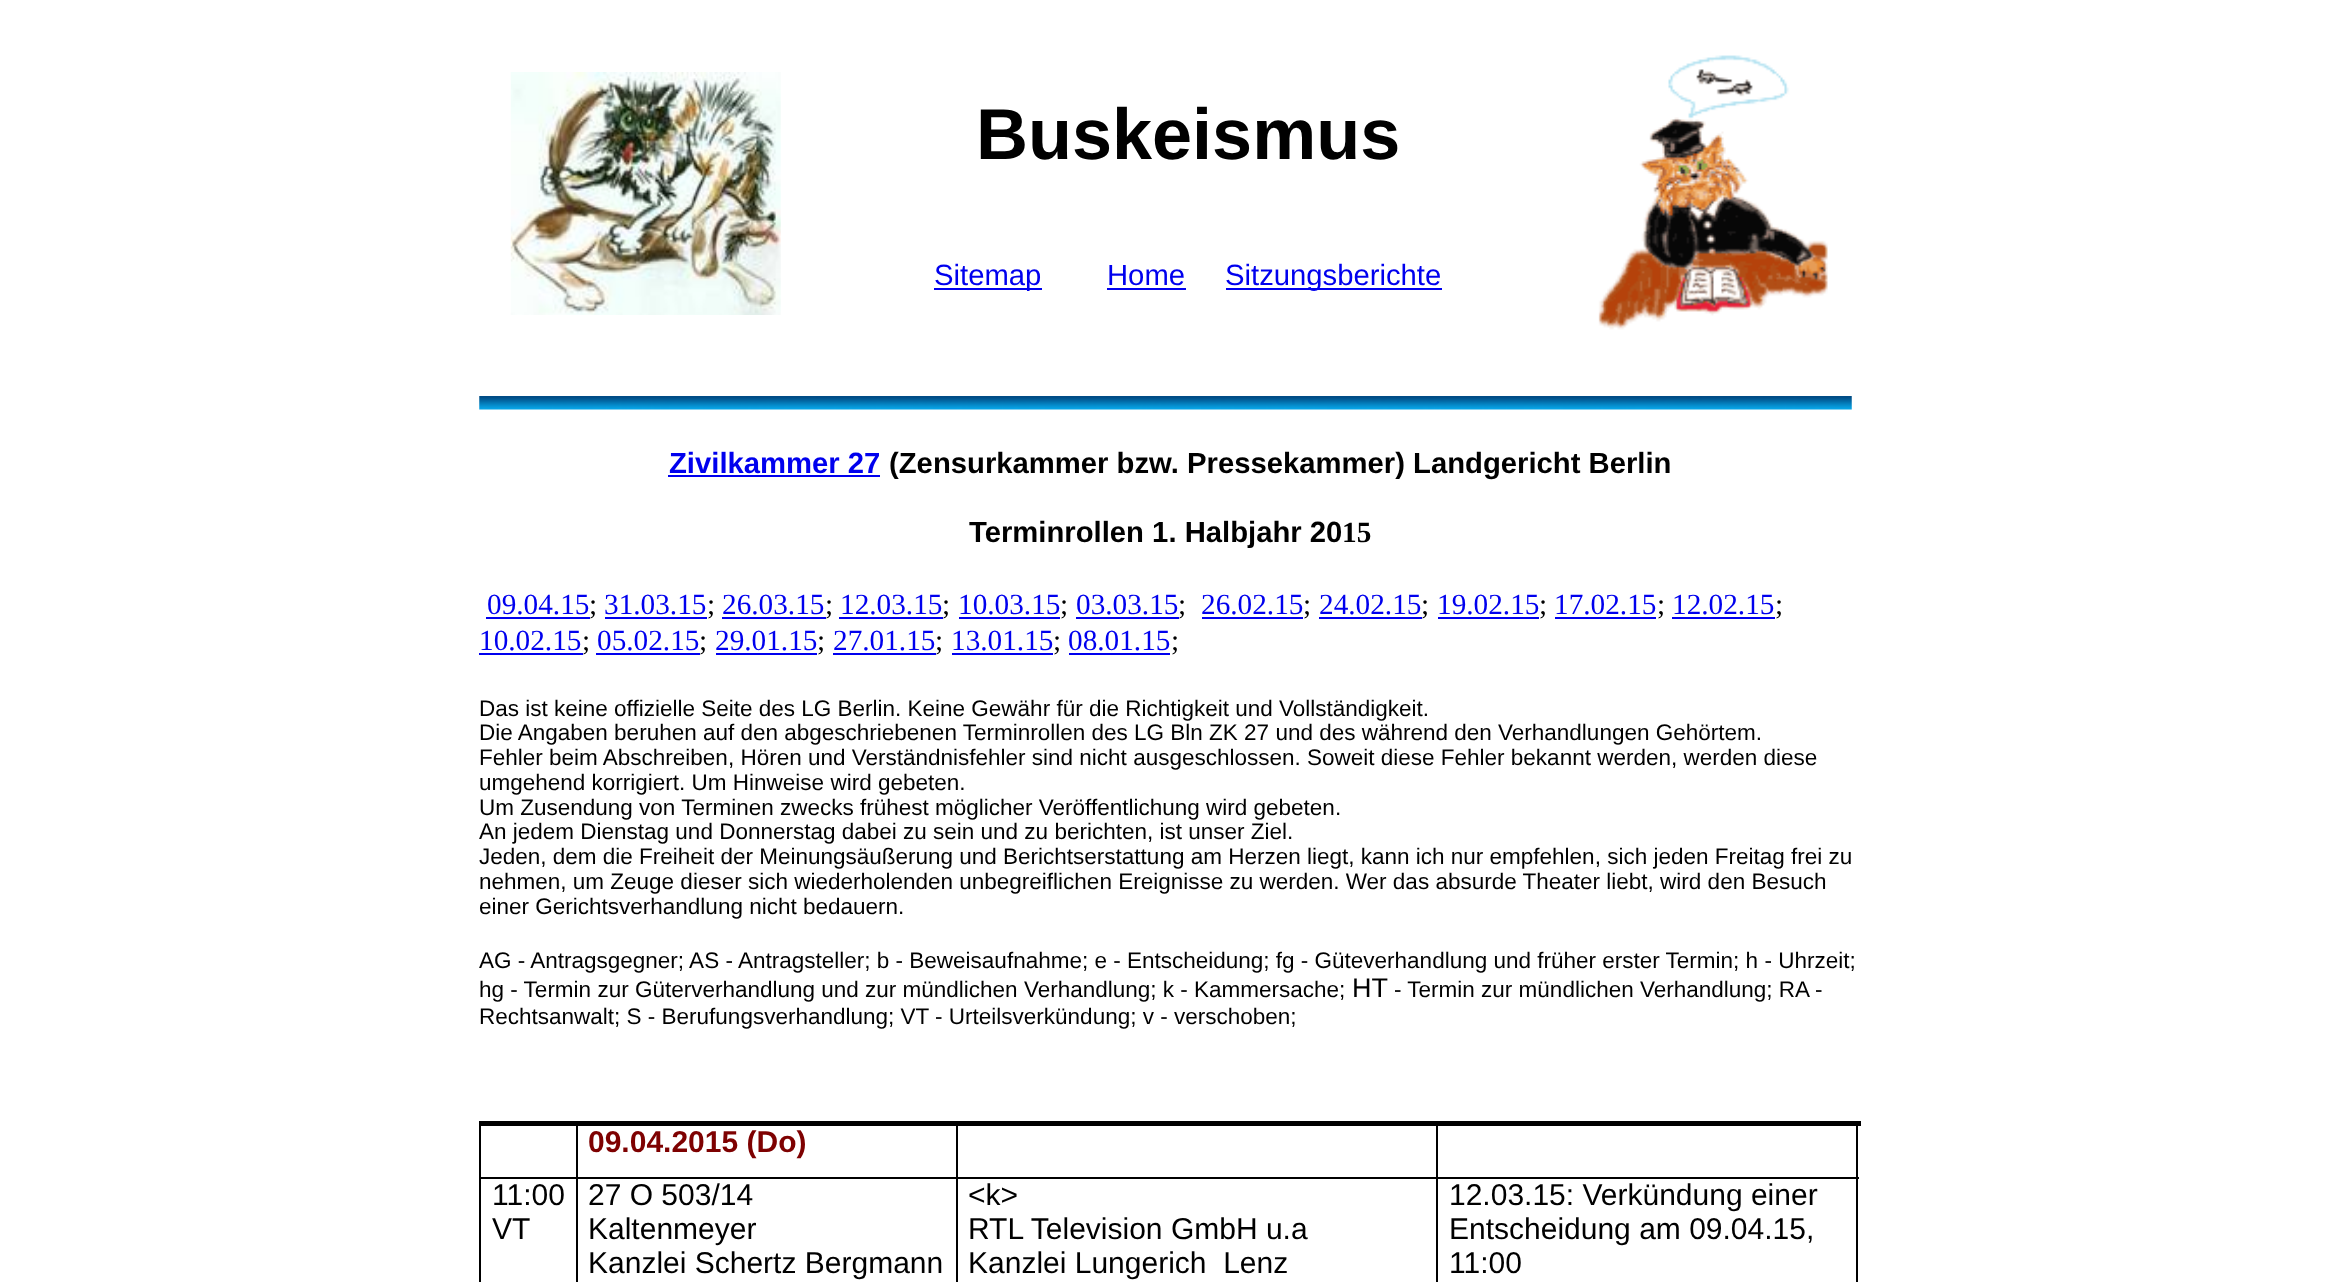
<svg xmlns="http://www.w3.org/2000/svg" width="2340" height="1282">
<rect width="100%" height="100%" fill="#fff"/>
<image x="510" y="72" width="271" height="243" href="media/1.png"/>
<text x="976" y="159" style="font-family:Liberation Sans;font-size:72px;font-weight:bold;fill:#000">Buskeismus</text>
<rect x="934" y="288" width="108" height="2" fill="#00e"/>
<text x="934" y="285" style="font-family:Liberation Sans;font-size:29.25px;fill:#00e">Sitemap</text>
<text x="1107" y="285" style="font-family:Liberation Sans;font-size:29.25px;fill:#00e">Home</text>
<rect x="1107" y="288" width="79" height="2" fill="#00e"/>
<rect x="1226" y="288" width="216" height="2" fill="#00e"/>
<text x="1225" y="285" style="font-family:Liberation Sans;font-size:29.25px;fill:#00e">Sitzungsberichte</text>
<image x="1598" y="55" width="230" height="275" href="media/2.png"/>
<image x="479" y="396" width="1373" height="14" href="media/3.png"/>
<text x="669" y="473" style="font-family:Liberation Sans;font-size:29.25px;font-weight:bold;fill:#00e">Zivilkammer 27</text>
<rect x="668" y="475" width="212" height="2" fill="#00e"/>
<text x="889" y="473" style="font-family:Liberation Sans;font-size:29.25px;font-weight:bold;fill:#000">(Zensurkammer bzw. Pressekammer) Landgericht Berlin</text>
<text x="969" y="542" style="font-family:Liberation Sans;font-size:29.25px;font-weight:bold;fill:#000">Terminrollen 1. Halbjahr 20</text>
<text x="1342" y="542" style="font-family:Liberation Serif;font-size:29.25px;font-weight:bold;fill:#000">15</text>
<text x="487" y="614" style="font-family:Liberation Serif;font-size:29.25px;fill:#00e">09.04.15</text>
<text x="589" y="614" style="font-family:Liberation Serif;font-size:29.25px;fill:#000">;</text>
<rect x="486" y="617" width="104" height="2" fill="#00e"/>
<text x="604" y="614" style="font-family:Liberation Serif;font-size:29.25px;fill:#00e">31.03.15</text>
<text x="707" y="614" style="font-family:Liberation Serif;font-size:29.25px;fill:#000">;</text>
<rect x="605" y="617" width="102" height="2" fill="#00e"/>
<text x="722" y="614" style="font-family:Liberation Serif;font-size:29.25px;fill:#00e">26.03.15</text>
<text x="825" y="614" style="font-family:Liberation Serif;font-size:29.25px;fill:#000">;</text>
<rect x="722" y="617" width="104" height="2" fill="#00e"/>
<text x="840" y="614" style="font-family:Liberation Serif;font-size:29.25px;fill:#00e">12.03.15</text>
<text x="942" y="614" style="font-family:Liberation Serif;font-size:29.25px;fill:#000">;</text>
<rect x="839" y="617" width="104" height="2" fill="#00e"/>
<text x="958" y="614" style="font-family:Liberation Serif;font-size:29.25px;fill:#00e">10.03.15</text>
<text x="1060" y="614" style="font-family:Liberation Serif;font-size:29.25px;fill:#000">;</text>
<rect x="959" y="617" width="101" height="2" fill="#00e"/>
<text x="1076" y="614" style="font-family:Liberation Serif;font-size:29.25px;fill:#00e">03.03.15</text>
<text x="1178" y="614" style="font-family:Liberation Serif;font-size:29.25px;fill:#000">;</text>
<rect x="1076" y="617" width="103" height="2" fill="#00e"/>
<text x="1201" y="614" style="font-family:Liberation Serif;font-size:29.25px;fill:#00e">26.02.15</text>
<text x="1303" y="614" style="font-family:Liberation Serif;font-size:29.25px;fill:#000">;</text>
<rect x="1202" y="617" width="101" height="2" fill="#00e"/>
<text x="1319" y="614" style="font-family:Liberation Serif;font-size:29.25px;fill:#00e">24.02.15</text>
<text x="1421" y="614" style="font-family:Liberation Serif;font-size:29.25px;fill:#000">;</text>
<rect x="1319" y="617" width="103" height="2" fill="#00e"/>
<text x="1437" y="614" style="font-family:Liberation Serif;font-size:29.25px;fill:#00e">19.02.15</text>
<text x="1539" y="614" style="font-family:Liberation Serif;font-size:29.25px;fill:#000">;</text>
<rect x="1438" y="617" width="101" height="2" fill="#00e"/>
<text x="1554" y="614" style="font-family:Liberation Serif;font-size:29.25px;fill:#00e">17.02.15</text>
<text x="1657" y="614" style="font-family:Liberation Serif;font-size:29.25px;fill:#000">;</text>
<rect x="1555" y="617" width="101" height="2" fill="#00e"/>
<text x="1672" y="614" style="font-family:Liberation Serif;font-size:29.25px;fill:#00e">12.02.15</text>
<text x="1775" y="614" style="font-family:Liberation Serif;font-size:29.25px;fill:#000">;</text>
<rect x="1672" y="617" width="103" height="2" fill="#00e"/>
<text x="479" y="650" style="font-family:Liberation Serif;font-size:29.25px;fill:#00e">10.02.15</text>
<text x="582" y="650" style="font-family:Liberation Serif;font-size:29.25px;fill:#000">;</text>
<rect x="479" y="653" width="104" height="2" fill="#00e"/>
<text x="597" y="650" style="font-family:Liberation Serif;font-size:29.25px;fill:#00e">05.02.15</text>
<text x="699" y="650" style="font-family:Liberation Serif;font-size:29.25px;fill:#000">;</text>
<rect x="596" y="653" width="104" height="2" fill="#00e"/>
<text x="715" y="650" style="font-family:Liberation Serif;font-size:29.25px;fill:#00e">29.01.15</text>
<text x="817" y="650" style="font-family:Liberation Serif;font-size:29.25px;fill:#000">;</text>
<rect x="716" y="653" width="101" height="2" fill="#00e"/>
<text x="833" y="650" style="font-family:Liberation Serif;font-size:29.25px;fill:#00e">27.01.15</text>
<text x="935" y="650" style="font-family:Liberation Serif;font-size:29.25px;fill:#000">;</text>
<rect x="833" y="653" width="103" height="2" fill="#00e"/>
<text x="951" y="650" style="font-family:Liberation Serif;font-size:29.25px;fill:#00e">13.01.15</text>
<text x="1053" y="650" style="font-family:Liberation Serif;font-size:29.25px;fill:#000">;</text>
<rect x="952" y="653" width="101" height="2" fill="#00e"/>
<text x="1068" y="650" style="font-family:Liberation Serif;font-size:29.25px;fill:#00e">08.01.15</text>
<text x="1171" y="650" style="font-family:Liberation Serif;font-size:29.25px;fill:#000">;</text>
<rect x="1069" y="653" width="101" height="2" fill="#00e"/>
<text x="479" y="716" style="font-family:Liberation Sans;font-size:22.5px;fill:#000">Das ist keine offizielle Seite des LG Berlin. Keine Gewähr für die Richtigkeit und Vollständigkeit.</text>
<text x="479" y="740" style="font-family:Liberation Sans;font-size:22.5px;fill:#000">Die Angaben beruhen auf den abgeschriebenen Terminrollen des LG Bln ZK 27 und des während den Verhandlungen Gehörtem.</text>
<text x="479" y="765" style="font-family:Liberation Sans;font-size:22.5px;fill:#000">Fehler beim Abschreiben, Hören und Verständnisfehler sind nicht ausgeschlossen. Soweit diese Fehler bekannt werden, werden diese</text>
<text x="479" y="790" style="font-family:Liberation Sans;font-size:22.5px;fill:#000">umgehend korrigiert. Um Hinweise wird gebeten.</text>
<text x="479" y="815" style="font-family:Liberation Sans;font-size:22.5px;fill:#000">Um Zusendung von Terminen zwecks frühest möglicher Veröffentlichung wird gebeten.</text>
<text x="479" y="839" style="font-family:Liberation Sans;font-size:22.5px;fill:#000">An jedem Dienstag und Donnerstag dabei zu sein und zu berichten, ist unser Ziel.</text>
<text x="479" y="864" style="font-family:Liberation Sans;font-size:22.5px;fill:#000">Jeden, dem die Freiheit der Meinungsäußerung und Berichtserstattung am Herzen liegt, kann ich nur empfehlen, sich jeden Freitag frei zu</text>
<text x="479" y="889" style="font-family:Liberation Sans;font-size:22.5px;fill:#000">nehmen, um Zeuge dieser sich wiederholenden unbegreiflichen Ereignisse zu werden. Wer das absurde Theater liebt, wird den Besuch</text>
<text x="479" y="914" style="font-family:Liberation Sans;font-size:22.5px;fill:#000">einer Gerichtsverhandlung nicht bedauern.</text>
<text x="479" y="968" style="font-family:Liberation Sans;font-size:22.5px;fill:#000">AG - Antragsgegner; AS -</text>
<text x="738" y="968" style="font-family:Liberation Sans;font-size:22.5px;fill:#000">Antragsteller; b - Beweisaufnahme; e - Entscheidung; fg - Güteverhandlung und früher erster Termin; h - Uhrzeit;</text>
<text x="479" y="997" style="font-family:Liberation Sans;font-size:22.5px;fill:#000">hg - Termin zur Güterverhandlung und zur mündlichen Verhandlung; k - Kammersache;</text>
<text x="1352" y="997" style="font-family:Liberation Sans;font-size:27px;fill:#000">HT</text>
<text x="1394" y="997" style="font-family:Liberation Sans;font-size:22.5px;fill:#000">- Termin zur mündlichen Verhandlung; RA -</text>
<text x="479" y="1024" style="font-family:Liberation Sans;font-size:22.5px;fill:#000">Rechtsanwalt; S - Berufungsverhandlung; VT - Urteilsverkündung; v - verschoben;</text>
<rect x="1436" y="1177" width="2" height="105" fill="#000"/>
<rect x="1856" y="1123" width="2" height="159" fill="#000"/>
<rect x="1436" y="1177" width="423" height="2" fill="#000"/>
<rect x="1436" y="1123" width="2" height="56" fill="#000"/>
<rect x="956" y="1177" width="2" height="105" fill="#000"/>
<rect x="956" y="1177" width="482" height="2" fill="#000"/>
<rect x="956" y="1123" width="2" height="56" fill="#000"/>
<rect x="576" y="1177" width="2" height="105" fill="#000"/>
<rect x="576" y="1177" width="383" height="2" fill="#000"/>
<rect x="576" y="1123" width="2" height="56" fill="#000"/>
<rect x="479" y="1177" width="2" height="105" fill="#000"/>
<rect x="479" y="1177" width="99" height="2" fill="#000"/>
<rect x="479" y="1123" width="2" height="56" fill="#000"/>
<rect x="479" y="1121" width="1382" height="5" fill="#000"/>
<text x="588" y="1152" style="font-family:Liberation Sans;font-size:30px;font-weight:bold;fill:#7e0101">09.04.2015 (Do)</text>
<text x="492" y="1205" style="font-family:Liberation Sans;font-size:30px;fill:#000">11:00</text>
<text x="492" y="1239" style="font-family:Liberation Sans;font-size:30px;fill:#000">VT</text>
<text x="588" y="1205" style="font-family:Liberation Sans;font-size:30px;fill:#000">27 O 503/14</text>
<text x="588" y="1239" style="font-family:Liberation Sans;font-size:30px;fill:#000">Kaltenmeyer</text>
<text x="588" y="1273" style="font-family:Liberation Sans;font-size:30px;fill:#000">Kanzlei Schertz Bergmann</text>
<text x="968" y="1205" style="font-family:Liberation Sans;font-size:30px;fill:#000">&lt;k&gt;</text>
<text x="968" y="1239" style="font-family:Liberation Sans;font-size:30px;fill:#000">RTL Television GmbH u.a</text>
<text x="968" y="1273" style="font-family:Liberation Sans;font-size:30px;fill:#000" xml:space="preserve">Kanzlei Lungerich  Lenz</text>
<text x="1449" y="1205" style="font-family:Liberation Sans;font-size:30px;fill:#000">12.03.15: Verkündung einer</text>
<text x="1449" y="1239" style="font-family:Liberation Sans;font-size:30px;fill:#000">Entscheidung am 09.04.15,</text>
<text x="1449" y="1273" style="font-family:Liberation Sans;font-size:30px;fill:#000">11:00</text>
</svg>
